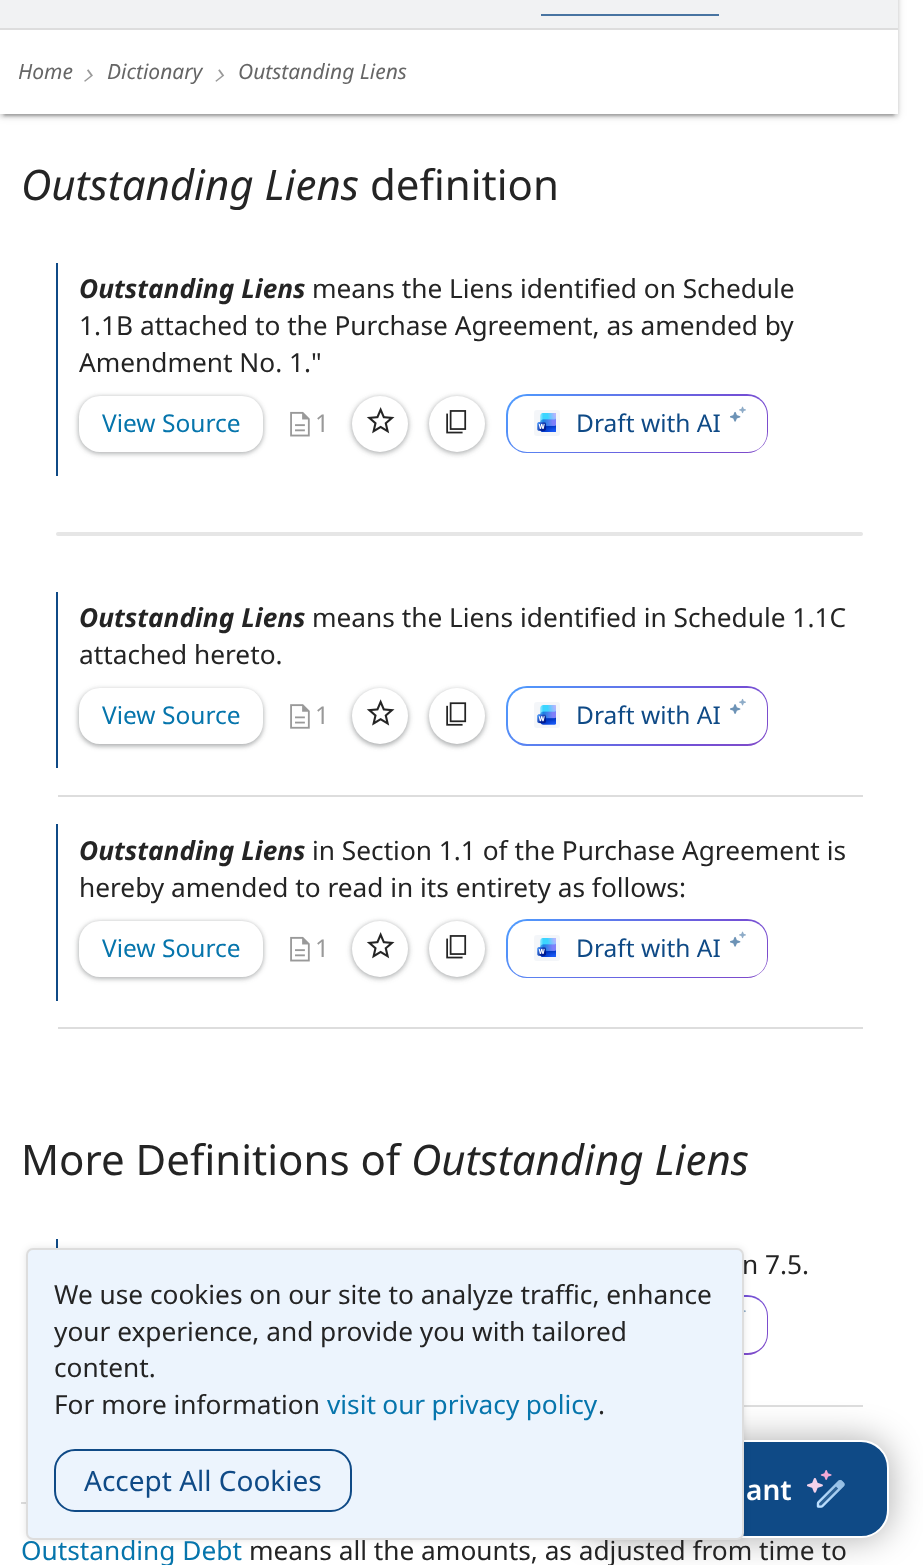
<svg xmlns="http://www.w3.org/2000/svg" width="923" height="1565">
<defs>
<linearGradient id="g1" gradientUnits="userSpaceOnUse" x1="912" y1="889" x2="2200" y2="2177"><stop offset="0" stop-color="#4d9dff"/><stop offset="0.09" stop-color="#7251d7"/><stop offset="0.2" stop-color="#9e3ca8"/><stop offset="0.29" stop-color="#b01983"/><stop offset="0.36" stop-color="#9e3ca8"/><stop offset="0.44" stop-color="#7251d7"/><stop offset="0.55" stop-color="#4d9dff"/><stop offset="0.65" stop-color="#7251d7"/><stop offset="0.76" stop-color="#b01983"/><stop offset="0.84" stop-color="#9e3ca8"/><stop offset="0.96" stop-color="#7251d7"/></linearGradient>
<linearGradient id="g2" gradientUnits="userSpaceOnUse" x1="912" y1="-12" x2="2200" y2="1276"><stop offset="0" stop-color="#4d9dff"/><stop offset="0.09" stop-color="#7251d7"/><stop offset="0.2" stop-color="#9e3ca8"/><stop offset="0.29" stop-color="#b01983"/><stop offset="0.36" stop-color="#9e3ca8"/><stop offset="0.44" stop-color="#7251d7"/><stop offset="0.55" stop-color="#4d9dff"/><stop offset="0.65" stop-color="#7251d7"/><stop offset="0.76" stop-color="#b01983"/><stop offset="0.84" stop-color="#9e3ca8"/><stop offset="0.96" stop-color="#7251d7"/></linearGradient>
<linearGradient id="g3" gradientUnits="userSpaceOnUse" x1="912" y1="280" x2="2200" y2="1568"><stop offset="0" stop-color="#4d9dff"/><stop offset="0.09" stop-color="#7251d7"/><stop offset="0.2" stop-color="#9e3ca8"/><stop offset="0.29" stop-color="#b01983"/><stop offset="0.36" stop-color="#9e3ca8"/><stop offset="0.44" stop-color="#7251d7"/><stop offset="0.55" stop-color="#4d9dff"/><stop offset="0.65" stop-color="#7251d7"/><stop offset="0.76" stop-color="#b01983"/><stop offset="0.84" stop-color="#9e3ca8"/><stop offset="0.96" stop-color="#7251d7"/></linearGradient>
<linearGradient id="g4" gradientUnits="userSpaceOnUse" x1="912" y1="513" x2="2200" y2="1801"><stop offset="0" stop-color="#4d9dff"/><stop offset="0.09" stop-color="#7251d7"/><stop offset="0.2" stop-color="#9e3ca8"/><stop offset="0.29" stop-color="#b01983"/><stop offset="0.36" stop-color="#9e3ca8"/><stop offset="0.44" stop-color="#7251d7"/><stop offset="0.55" stop-color="#4d9dff"/><stop offset="0.65" stop-color="#7251d7"/><stop offset="0.76" stop-color="#b01983"/><stop offset="0.84" stop-color="#9e3ca8"/><stop offset="0.96" stop-color="#7251d7"/></linearGradient>
</defs>
<rect width="100%" height="100%" fill="#fff"/>
<rect y="-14" width="898" height="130" fill="#0000001f" filter="blur(4.5px)"/>
<rect y="-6" width="898" height="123" fill="#00000024" filter="blur(2px)"/>
<rect x="4" y="-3" width="890" height="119" fill="#00000033" filter="blur(1px)"/>
<rect y="30" width="898" height="84" fill="#fff"/>
<rect width="898" height="28" fill="#f1f2f3"/>
<rect x="541" y="14" width="178" height="2" fill="#4874a1"/>
<rect y="28" width="898" height="2" fill="#ddd"/>
<text x="18" y="79" style="font-family:Noto Sans;font-size:21px;font-style:italic;fill:#666">Home</text>
<image x="84" y="69" width="9" height="13" href="media/1.png"/>
<text x="107" y="79" style="font-family:Noto Sans;font-size:21px;font-style:italic;fill:#666">Dictionary</text>
<image x="215" y="69" width="10" height="13" href="media/2.png"/>
<text x="238" y="79" style="font-family:Noto Sans;font-size:21px;font-style:italic;fill:#666">Outstanding Liens</text>
<rect x="56" y="1239" width="2" height="9" fill="#0f4a86"/>
<rect x="506" y="1295" width="262" height="60" rx="21" fill="url(#g1)"/>
<rect x="508" y="1297" width="259" height="56" rx="19" fill="#fff"/>
<image x="744" y="1310" width="2" height="3" href="media/13.png"/>
<rect x="744" y="1405" width="119" height="2" fill="#ddd"/>
<rect x="21" y="1502" width="5" height="2" fill="#ddd"/>
<rect x="586" y="1440" width="303" height="98" rx="28" fill="#00000054" filter="blur(17.5px)"/>
<rect x="587" y="1441" width="301" height="96" rx="27" fill="#0f4a86" stroke="#fff" stroke-width="2"/>
<rect x="26" y="1248" width="718" height="292" rx="7" fill="#0000001a" filter="blur(3.5px)"/>
<text x="249" y="1560" style="font-family:Noto Sans;font-size:26.25px;fill:#242424">means all the amounts, as adjusted from time to</text>
<rect x="27" y="1249" width="716" height="290" rx="6" fill="#ecf4fd" stroke="#ddd" stroke-width="2"/>
<text x="54" y="1304" style="font-family:Noto Sans;font-size:26.25px;fill:#242424">We use cookies on our site to analyze traffic, enhance</text>
<text x="54" y="1341" style="font-family:Noto Sans;font-size:26.25px;fill:#242424">your experience, and provide you with tailored</text>
<text x="54" y="1377" style="font-family:Noto Sans;font-size:26.25px;fill:#242424">content.</text>
<text x="54" y="1414" style="font-family:Noto Sans;font-size:26.25px;fill:#242424">For more information</text>
<text x="327" y="1414" word-spacing="-0.5" style="font-family:Noto Sans;font-size:26.25px;fill:#0675ac">visit our privacy policy</text>
<text x="598" y="1414" style="font-family:Noto Sans;font-size:26.25px;fill:#242424">.</text>
<rect x="55" y="1450" width="296" height="61" rx="20" fill="none" stroke="#0f4a86" stroke-width="2"/>
<text x="84" y="1491" style="font-family:Noto Sans;font-size:28px;fill:#0f4a86">Accept All Cookies</text>
<text x="21" y="200" style="font-family:Noto Sans;font-size:42px;font-style:italic;fill:#242424">Outstanding Liens</text>
<text x="370" y="200" style="font-family:Noto Sans;font-size:42px;fill:#242424">definition</text>
<rect x="56" y="263" width="2" height="213" fill="#0f4a86"/>
<text x="79" y="298" style="font-family:Noto Sans;font-size:26.25px;font-weight:bold;font-style:italic;fill:#242424">Outstanding Liens</text>
<text x="312" y="298" style="font-family:Noto Sans;font-size:26.25px;fill:#242424">means the Liens identified on Schedule</text>
<text x="79" y="335" style="font-family:Noto Sans;font-size:26.25px;fill:#242424">1.1B attached to the Purchase Agreement, as amended by</text>
<text x="79" y="372" style="font-family:Noto Sans;font-size:26.25px;fill:#242424">Amendment No. 1."</text>
<rect x="77" y="396" width="187" height="59" rx="23" fill="#3c404326" filter="blur(2.5px)"/>
<rect x="79" y="397" width="184" height="56" rx="21" fill="#3c40434d" filter="blur(2px)"/>
<rect x="79" y="396" width="184" height="56" rx="21" fill="#fff"/>
<text x="102" y="432" style="font-family:Noto Sans;font-size:24.5px;fill:#0675ac">View Source</text>
<image x="290" y="411" width="20" height="26" href="media/3.png"/>
<text x="315" y="432" style="font-family:Noto Sans;font-size:24.5px;fill:#999">1</text>
<rect x="350" y="396" width="60" height="59" rx="29.5" fill="#3c404326" filter="blur(2.5px)"/>
<rect x="352" y="397" width="56" height="56" rx="28" fill="#3c40434d" filter="blur(2px)"/>
<circle cx="380" cy="424" r="28" fill="#fff"/>
<image x="366" y="407" width="29" height="27" href="media/4.png"/>
<rect x="427" y="396" width="60" height="59" rx="29.5" fill="#3c404326" filter="blur(2.5px)"/>
<rect x="429" y="397" width="56" height="56" rx="28" fill="#3c40434d" filter="blur(2px)"/>
<circle cx="457" cy="424" r="28" fill="#fff"/>
<image x="446" y="410" width="21" height="24" href="media/5.png"/>
<rect x="506" y="394" width="262" height="59" rx="21" fill="url(#g2)"/>
<rect x="508" y="396" width="259" height="56" rx="19" fill="#fff"/>
<image x="534" y="410" width="26" height="26" href="media/6.png"/>
<text x="576" y="432" style="font-family:Noto Sans;font-size:24.5px;fill:#0f4a86">Draft with AI</text>
<image x="730" y="406" width="16" height="16" href="media/7.png"/>
<rect x="56" y="532" width="807" height="4" rx="2" fill="#e6e6e6"/>
<rect x="56" y="592" width="2" height="176" fill="#0f4a86"/>
<text x="79" y="627" style="font-family:Noto Sans;font-size:26.25px;font-weight:bold;font-style:italic;fill:#242424">Outstanding Liens</text>
<text x="312" y="627" style="font-family:Noto Sans;font-size:26.25px;fill:#242424">means the Liens identified in Schedule 1.1C</text>
<text x="79" y="664" style="font-family:Noto Sans;font-size:26.25px;fill:#242424">attached hereto.</text>
<rect x="77" y="688" width="187" height="59" rx="23" fill="#3c404326" filter="blur(2.5px)"/>
<rect x="79" y="690" width="184" height="56" rx="21" fill="#3c40434d" filter="blur(2px)"/>
<rect x="79" y="688" width="184" height="56" rx="21" fill="#fff"/>
<text x="102" y="724" style="font-family:Noto Sans;font-size:24.5px;fill:#0675ac">View Source</text>
<image x="290" y="704" width="20" height="25" href="media/8.png"/>
<text x="315" y="724" style="font-family:Noto Sans;font-size:24.5px;fill:#999">1</text>
<rect x="350" y="688" width="60" height="59" rx="29.5" fill="#3c404326" filter="blur(2.5px)"/>
<rect x="352" y="690" width="56" height="56" rx="28" fill="#3c40434d" filter="blur(2px)"/>
<circle cx="380" cy="716" r="28" fill="#fff"/>
<image x="366" y="699" width="29" height="27" href="media/9.png"/>
<rect x="427" y="688" width="60" height="59" rx="29.5" fill="#3c404326" filter="blur(2.5px)"/>
<rect x="429" y="690" width="56" height="56" rx="28" fill="#3c40434d" filter="blur(2px)"/>
<circle cx="457" cy="716" r="28" fill="#fff"/>
<image x="446" y="702" width="21" height="24" href="media/10.png"/>
<rect x="506" y="686" width="262" height="60" rx="21" fill="url(#g3)"/>
<rect x="508" y="688" width="259" height="56" rx="19" fill="#fff"/>
<image x="534" y="702" width="26" height="26" href="media/11.png"/>
<text x="576" y="724" style="font-family:Noto Sans;font-size:24.5px;fill:#0f4a86">Draft with AI</text>
<image x="730" y="698" width="16" height="16" href="media/12.png"/>
<rect x="58" y="795" width="805" height="2" fill="#ddd"/>
<rect x="56" y="824" width="2" height="177" fill="#0f4a86"/>
<text x="79" y="860" style="font-family:Noto Sans;font-size:26.25px;font-weight:bold;font-style:italic;fill:#242424">Outstanding Liens</text>
<text x="312" y="860" style="font-family:Noto Sans;font-size:26.25px;fill:#242424">in Section 1.1 of the Purchase Agreement is</text>
<text x="79" y="897" style="font-family:Noto Sans;font-size:26.25px;fill:#242424">hereby amended to read in its entirety as follows:</text>
<rect x="77" y="921" width="187" height="59" rx="23" fill="#3c404326" filter="blur(2.5px)"/>
<rect x="79" y="922" width="184" height="56" rx="21" fill="#3c40434d" filter="blur(2px)"/>
<rect x="79" y="921" width="184" height="56" rx="21" fill="#fff"/>
<text x="102" y="957" style="font-family:Noto Sans;font-size:24.5px;fill:#0675ac">View Source</text>
<image x="290" y="936" width="20" height="26" href="media/3.png"/>
<text x="315" y="957" style="font-family:Noto Sans;font-size:24.5px;fill:#999">1</text>
<rect x="350" y="921" width="60" height="59" rx="29.5" fill="#3c404326" filter="blur(2.5px)"/>
<rect x="352" y="922" width="56" height="56" rx="28" fill="#3c40434d" filter="blur(2px)"/>
<circle cx="380" cy="949" r="28" fill="#fff"/>
<image x="366" y="932" width="29" height="27" href="media/4.png"/>
<rect x="427" y="921" width="60" height="59" rx="29.5" fill="#3c404326" filter="blur(2.5px)"/>
<rect x="429" y="922" width="56" height="56" rx="28" fill="#3c40434d" filter="blur(2px)"/>
<circle cx="457" cy="949" r="28" fill="#fff"/>
<image x="446" y="935" width="21" height="24" href="media/5.png"/>
<rect x="506" y="919" width="262" height="59" rx="21" fill="url(#g4)"/>
<rect x="508" y="921" width="259" height="56" rx="19" fill="#fff"/>
<image x="534" y="935" width="26" height="26" href="media/6.png"/>
<text x="576" y="957" style="font-family:Noto Sans;font-size:24.5px;fill:#0f4a86">Draft with AI</text>
<image x="730" y="931" width="16" height="16" href="media/7.png"/>
<rect x="58" y="1027" width="805" height="2" fill="#ddd"/>
<text x="21" y="1175" style="font-family:Noto Sans;font-size:42px;fill:#242424">More Definitions of</text>
<text x="411" y="1175" style="font-family:Noto Sans;font-size:42px;font-style:italic;fill:#242424">Outstanding Liens</text>
<text x="742" y="1274" style="font-family:Noto Sans;font-size:26.25px;fill:#242424">n 7.5.</text>
<text x="21" y="1560" style="font-family:Noto Sans;font-size:26.25px;fill:#0675ac">Outstanding Debt</text>
<text x="746" y="1500" style="font-family:Noto Sans;font-size:28px;font-weight:600;fill:#fff">ant</text>
<image x="807" y="1470" width="38" height="38" href="media/14.png"/>
</svg>
